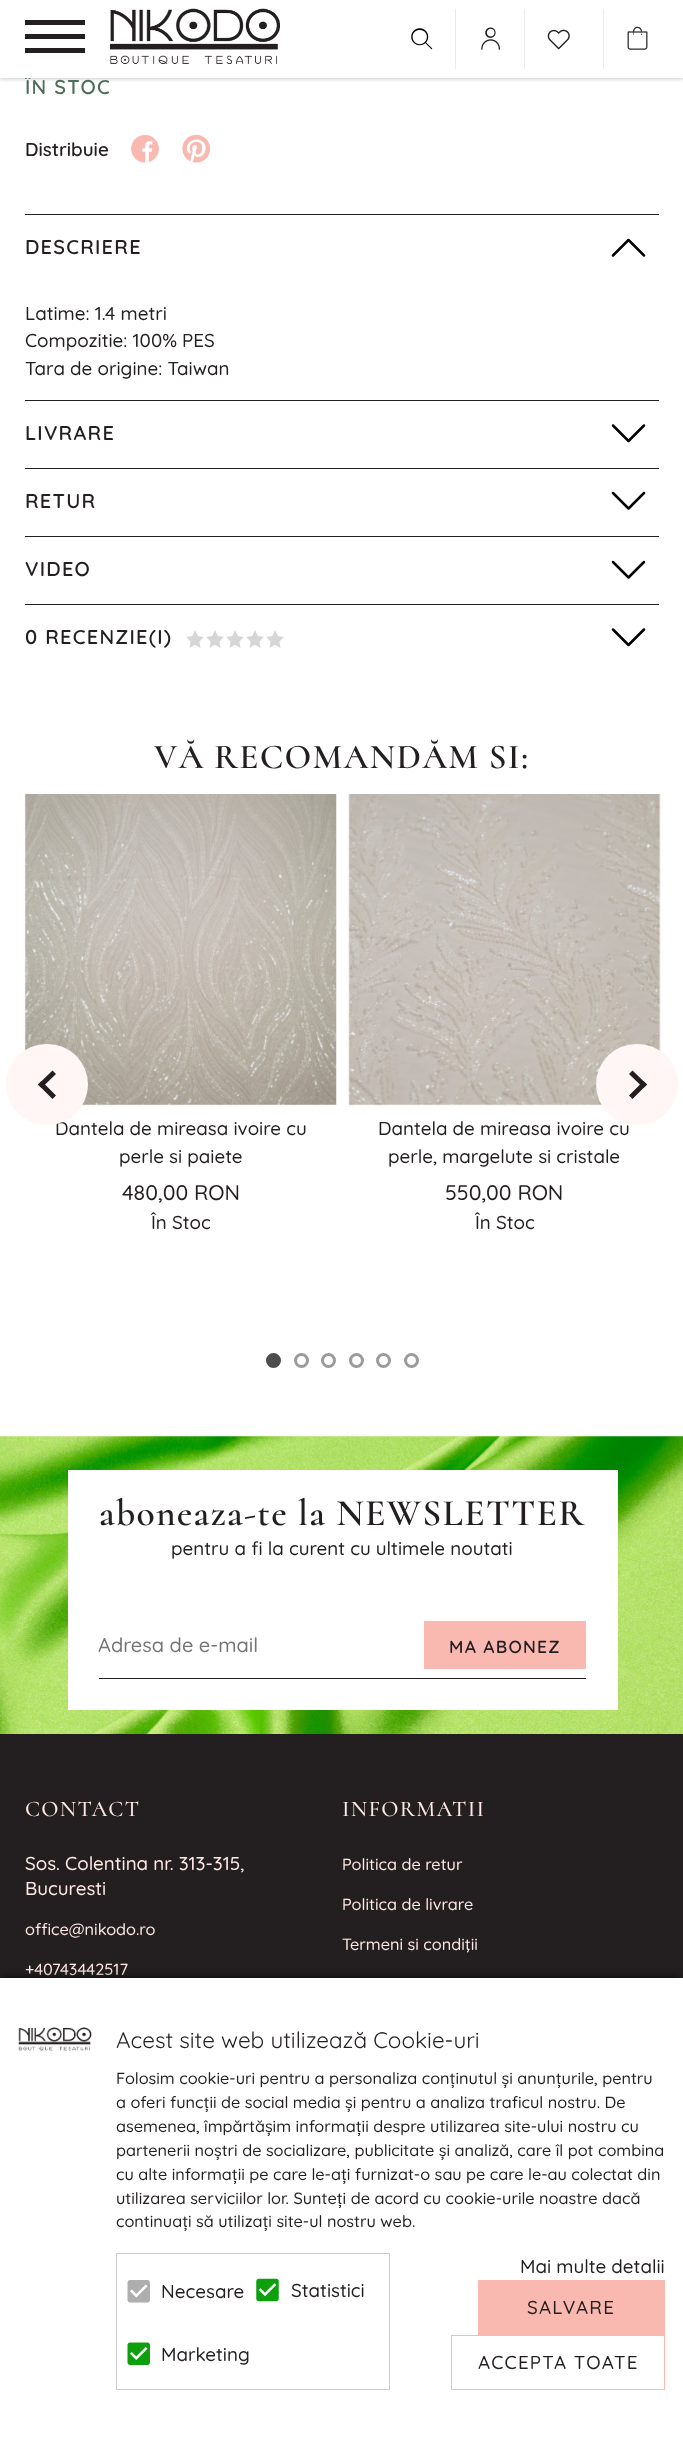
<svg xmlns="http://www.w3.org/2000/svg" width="683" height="2440">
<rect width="100%" height="100%" fill="#fff"/>
<rect y="1" width="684" height="78" fill="#00000033" filter="blur(2px)"/>
<text x="25" y="94" style="font-family:Quicksand;font-size:20px;font-weight:600;letter-spacing:1.25px;fill:#4e6e5d">ÎN STOC</text>
<rect width="683" height="78" fill="#fff"/>
<rect x="25" y="20" width="60" height="5" fill="#231f20"/>
<rect x="25" y="34" width="60" height="5" fill="#231f20"/>
<rect x="25" y="48" width="60" height="5" fill="#231f20"/>
<image x="110" y="8" width="170" height="56" href="media/1.png"/>
<image x="411" y="28" width="22" height="22" href="media/2.png"/>
<rect x="455" y="9" width="1" height="60" fill="#ebebeb"/>
<image x="481" y="27" width="19" height="23" href="media/3.png"/>
<rect x="524" y="9" width="1" height="60" fill="#ebebeb"/>
<image x="547" y="29" width="23" height="21" href="media/4.png"/>
<rect x="603" y="9" width="1" height="60" fill="#ebebeb"/>
<image x="627" y="26" width="21" height="24" href="media/5.png"/>
<text x="25" y="156" style="font-family:Quicksand;font-size:18.75px;font-weight:600;fill:#231f20">Distribuie</text>
<image x="131" y="134" width="28" height="29" href="media/6.png"/>
<image x="182" y="134" width="29" height="29" href="media/7.png"/>
<path d="M613 255.5l15.5-15.5l15.5 15.5" fill="none" stroke="#000" stroke-width="2.5" stroke-linecap="round" stroke-linejoin="round"/>
<rect x="25" y="214" width="634" height="1" fill="#231f20"/>
<text x="25" y="254" style="font-family:Quicksand;font-size:20px;font-weight:600;letter-spacing:1.25px;fill:#231f20">DESCRIERE</text>
<text x="25" y="320" style="font-family:Quicksand;font-size:18.75px;font-weight:500;fill:#231f20">Latime: 1.4 metri</text>
<text x="25" y="347" style="font-family:Quicksand;font-size:18.75px;font-weight:500;fill:#231f20">Compozitie: 100% PES</text>
<text x="25" y="375" style="font-family:Quicksand;font-size:18.75px;font-weight:500;fill:#231f20">Tara de origine: Taiwan</text>
<path d="M613 425.5l15.5 15.5l15.5-15.5" fill="none" stroke="#000" stroke-width="2.5" stroke-linecap="round" stroke-linejoin="round"/>
<rect x="25" y="400" width="634" height="1" fill="#231f20"/>
<text x="25" y="440" style="font-family:Quicksand;font-size:20px;font-weight:600;letter-spacing:1.25px;fill:#231f20">LIVRARE</text>
<path d="M613 493l15.5 15.5l15.5-15.5" fill="none" stroke="#000" stroke-width="2.5" stroke-linecap="round" stroke-linejoin="round"/>
<rect x="25" y="468" width="634" height="1" fill="#231f20"/>
<text x="25" y="508" style="font-family:Quicksand;font-size:20px;font-weight:600;letter-spacing:1.25px;fill:#231f20">RETUR</text>
<path d="M613 562l15.5 15.5l15.5-15.5" fill="none" stroke="#000" stroke-width="2.5" stroke-linecap="round" stroke-linejoin="round"/>
<rect x="25" y="536" width="634" height="1" fill="#231f20"/>
<text x="25" y="576" style="font-family:Quicksand;font-size:20px;font-weight:600;letter-spacing:1.25px;fill:#231f20">VIDEO</text>
<path d="M613 629.5l15.5 15.5l15.5-15.5" fill="none" stroke="#000" stroke-width="2.5" stroke-linecap="round" stroke-linejoin="round"/>
<rect x="25" y="604" width="634" height="1" fill="#231f20"/>
<text x="25" y="644" style="font-family:Quicksand;font-size:20px;font-weight:600;letter-spacing:1.25px;fill:#231f20">0 RECENZIE(I)</text>
<image x="186" y="630" width="98" height="18" href="media/8.png"/>
<text x="154" y="768" style="font-family:Cormorant;font-size:35px;font-weight:600;letter-spacing:1.25px;fill:#231f20">VĂ RECOMANDĂM SI:</text>
<image x="24" y="794" width="313" height="312" href="media/9.png"/>
<text x="55" y="1135" style="font-family:Quicksand;font-size:18.75px;font-weight:500;fill:#231f20">Dantela de mireasa ivoire cu</text>
<rect x="6" y="1044" width="82" height="81" rx="40.5" fill="#fff6f5"/>
<path d="M38 1084.5l14.5-14l3.5 3.5l-14.5 14z" fill="#231f20"/>
<path d="M41.5 1081l14.5 14.5l-3.5 3.5l-14.5-14.5z" fill="#231f20"/>
<image x="348" y="794" width="313" height="312" href="media/10.png"/>
<text x="378" y="1135" style="font-family:Quicksand;font-size:18.75px;font-weight:500;fill:#231f20">Dantela de mireasa ivoire cu</text>
<rect x="596" y="1044" width="82" height="81" rx="40.5" fill="#fff6f5"/>
<path d="M643.5 1088l-14.5-14l3.5-3.5l14.5 14z" fill="#231f20"/>
<path d="M647 1084.5l-14.5 14.5l-3.5-3.5l14.5-14.5z" fill="#231f20"/>
<text x="119" y="1163" style="font-family:Quicksand;font-size:18.75px;font-weight:500;fill:#231f20">perle si paiete</text>
<text x="122" y="1200" style="font-family:Quicksand;font-size:21.25px;font-weight:500;fill:#231f20">480,00 RON</text>
<text x="151" y="1229" style="font-family:Quicksand;font-size:18.75px;font-weight:500;fill:#231f20">În Stoc</text>
<text x="388" y="1163" style="font-family:Quicksand;font-size:18.75px;font-weight:500;fill:#231f20">perle, margelute si cristale</text>
<text x="445" y="1200" style="font-family:Quicksand;font-size:21.25px;font-weight:500;fill:#231f20">550,00 RON</text>
<text x="475" y="1229" style="font-family:Quicksand;font-size:18.75px;font-weight:500;fill:#231f20">În Stoc</text>
<circle cx="273.5" cy="1360.5" r="6" fill="#4f4c4d" stroke="#4f4c4d" stroke-width="3"/>
<circle cx="301.5" cy="1360.5" r="6" fill="none" stroke="#9d9a9b" stroke-width="3"/>
<circle cx="328.5" cy="1360.5" r="6" fill="none" stroke="#9d9a9b" stroke-width="3"/>
<circle cx="356.5" cy="1360.5" r="6" fill="none" stroke="#9d9a9b" stroke-width="3"/>
<circle cx="383.5" cy="1360.5" r="6" fill="none" stroke="#9d9a9b" stroke-width="3"/>
<circle cx="411.5" cy="1360.5" r="6" fill="none" stroke="#9d9a9b" stroke-width="3"/>
<image x="0" y="1436" width="683" height="298" href="media/11.png"/>
<rect x="68" y="1470" width="550" height="240" fill="#fff"/>
<text x="99" y="1525" style="font-family:Cormorant;font-size:37.5px;font-weight:600;letter-spacing:1.25px;fill:#231f20">aboneaza-te la NEWSLETTER</text>
<text x="171" y="1555" style="font-family:Quicksand;font-size:18.75px;font-weight:500;fill:#231f20">pentru a fi la curent cu ultimele noutati</text>
<rect x="99" y="1678" width="487" height="1" fill="#231f20"/>
<text x="98" y="1652" style="font-family:Quicksand;font-size:20px;font-weight:500;fill:#757575">Adresa de e-mail</text>
<rect x="424" y="1621" width="162" height="48" fill="#f9b9b1"/>
<text x="449" y="1653" style="font-family:Quicksand;font-size:17.5px;font-weight:600;letter-spacing:1.25px;fill:#231f20">MA ABONEZ</text>
<rect y="1734" width="683" height="244" fill="#231f20"/>
<text x="25" y="1816" style="font-family:Cormorant;font-size:22.5px;font-weight:500;letter-spacing:1.25px;fill:#ffe8e5">CONTACT</text>
<text x="25" y="1870" style="font-family:Quicksand;font-size:18.75px;font-weight:500;fill:#ffe8e5">Sos. Colentina nr. 313-315,</text>
<text x="25" y="1895" style="font-family:Quicksand;font-size:18.75px;font-weight:500;fill:#ffe8e5">Bucuresti</text>
<text x="25" y="1935" style="font-family:Quicksand;font-size:16.25px;font-weight:500;fill:#ffe8e5">office@nikodo.ro</text>
<text x="25" y="1975" style="font-family:Quicksand;font-size:16.25px;font-weight:500;fill:#ffe8e5">+40743442517</text>
<text x="342" y="1816" style="font-family:Cormorant;font-size:22.5px;font-weight:500;letter-spacing:1.25px;fill:#ffe8e5">INFORMATII</text>
<text x="342" y="1870" style="font-family:Quicksand;font-size:16.25px;font-weight:500;fill:#ffe8e5">Politica de retur</text>
<text x="342" y="1910" style="font-family:Quicksand;font-size:16.25px;font-weight:500;fill:#ffe8e5">Politica de livrare</text>
<text x="342" y="1950" style="font-family:Quicksand;font-size:16.25px;font-weight:500;fill:#ffe8e5">Termeni si condiţii</text>
<rect x="3" y="1978" width="678" height="457" fill="#000000bf" filter="blur(5px)"/>
<rect y="1978" width="683" height="462" fill="#fff"/>
<image x="18" y="2027" width="74" height="24" href="media/12.png"/>
<text x="116" y="2048" style="font-family:Quicksand;font-size:22.5px;fill:#231f20">Acest site web utilizează Cookie-uri</text>
<text x="116" y="2084" style="font-family:Quicksand;font-size:16.25px;font-weight:500;fill:#231f20">Folosim cookie-uri pentru a personaliza conținutul și anunțurile, pentru</text>
<text x="116" y="2108" style="font-family:Quicksand;font-size:16.25px;font-weight:500;fill:#231f20">a oferi funcții de social media și pentru a analiza traficul nostru. De</text>
<text x="116" y="2132" style="font-family:Quicksand;font-size:16.25px;font-weight:500;fill:#231f20">asemenea, împărtășim informații despre utilizarea site-ului nostru cu</text>
<text x="116" y="2156" style="font-family:Quicksand;font-size:16.25px;font-weight:500;fill:#231f20">partenerii noștri de socializare, publicitate și analiză, care îl pot combina</text>
<text x="116" y="2180" style="font-family:Quicksand;font-size:16.25px;font-weight:500;fill:#231f20">cu alte informații pe care le-ați furnizat-o sau pe care le-au colectat din</text>
<text x="116" y="2204" style="font-family:Quicksand;font-size:16.25px;font-weight:500;fill:#231f20">utilizarea serviciilor lor. Sunteți de acord cu cookie-urile noastre dacă</text>
<text x="116" y="2227" style="font-family:Quicksand;font-size:16.25px;font-weight:500;fill:#231f20">continuați să utilizați site-ul nostru web.</text>
<rect x="116.5" y="2253.5" width="273" height="136" fill="none" stroke="#ccc"/>
<image x="127" y="2280" width="23" height="23" href="media/13.png"/>
<text x="161" y="2298" style="font-family:Quicksand;font-size:18.75px;font-weight:500;fill:#231f20">Necesare</text>
<image x="256" y="2278" width="23" height="24" href="media/14.png"/>
<text x="291" y="2297" style="font-family:Quicksand;font-size:18.75px;font-weight:500;fill:#231f20">Statistici</text>
<image x="127" y="2342" width="23" height="23" href="media/15.png"/>
<text x="161" y="2361" style="font-family:Quicksand;font-size:18.75px;font-weight:500;fill:#231f20">Marketing</text>
<text x="520" y="2273" style="font-family:Quicksand;font-size:18.75px;font-weight:500;fill:#231f20">Mai multe detalii</text>
<rect x="478" y="2280" width="187" height="55" fill="#f9b9b1"/>
<text x="527" y="2314" style="font-family:Quicksand;font-size:18.75px;font-weight:500;letter-spacing:1.25px;fill:#231f20">SALVARE</text>
<rect x="451.5" y="2335.5" width="213" height="54" fill="none" stroke="#f9b9b1"/>
<text x="478" y="2369" style="font-family:Quicksand;font-size:18.75px;font-weight:500;letter-spacing:1.25px;fill:#231f20">ACCEPTA TOATE</text>
</svg>
